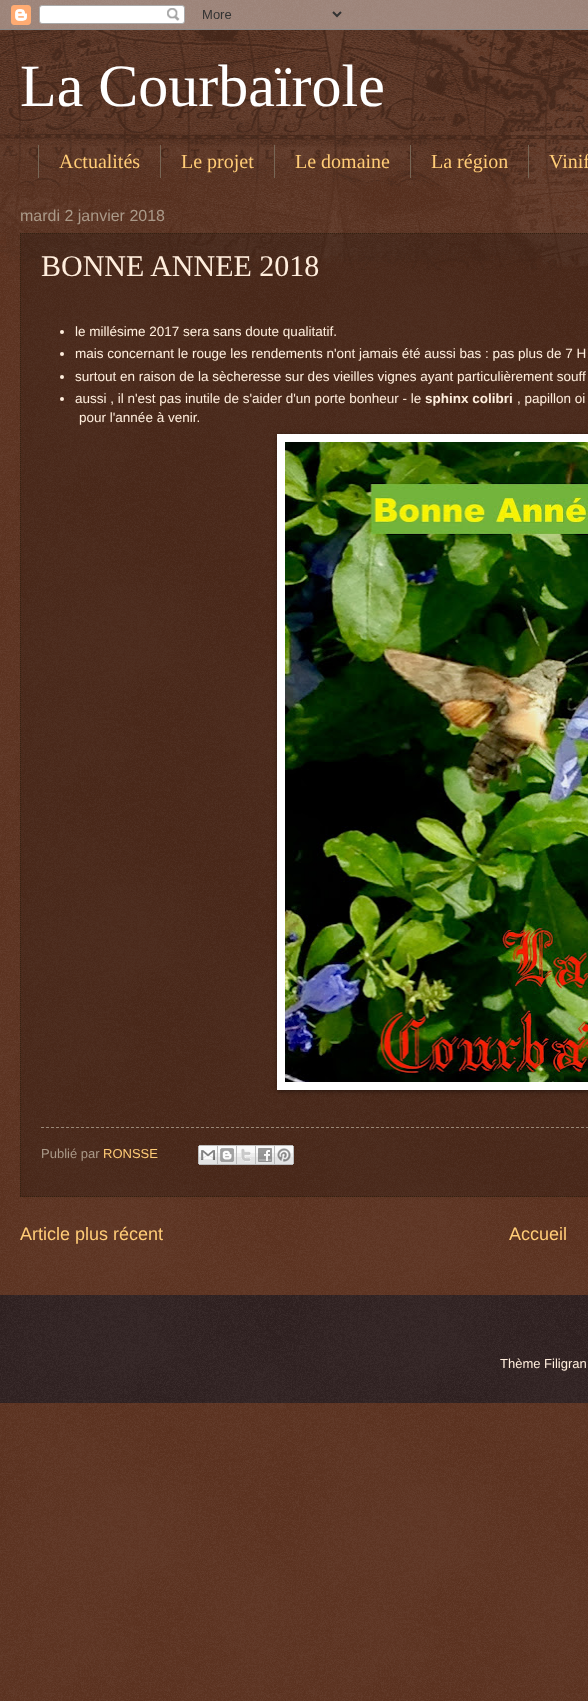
<svg xmlns="http://www.w3.org/2000/svg" width="588" height="1701">
<rect width="100%" height="100%" fill="#441500"/>
<image x="0" y="0" width="588" height="1701" href="media/1.png"/>
<image x="0" y="0" width="588" height="30" href="media/2.png"/>
<image x="0" y="30" width="588" height="240" href="media/3.png"/>
<text x="20" y="106" style="font-family:Liberation Serif;font-size:60px;fill:#fff">La Courbaïrole</text>
<rect x="160" y="145" width="1" height="33" fill="#765"/>
<rect x="38" y="145" width="1" height="33" fill="#765"/>
<text x="59" y="168" style="font-family:Liberation Serif;font-size:20px;fill:#fc7">Actualités</text>
<rect x="274" y="145" width="1" height="33" fill="#765"/>
<text x="181" y="168" style="font-family:Liberation Serif;font-size:20px;fill:#fc7">Le projet</text>
<rect x="410" y="145" width="1" height="33" fill="#765"/>
<text x="295" y="168" style="font-family:Liberation Serif;font-size:20px;fill:#fc7">Le domaine</text>
<rect x="528" y="145" width="1" height="33" fill="#765"/>
<text x="431" y="168" style="font-family:Liberation Serif;font-size:20px;fill:#fc7">La région</text>
<text x="549" y="168" style="font-family:Liberation Serif;font-size:20px;fill:#fc7">Vinif</text>
<text x="20" y="221" style="font-family:Liberation Sans;font-size:16px;fill:#a98">mardi 2 janvier 2018</text>
<rect x="20" y="233" width="568" height="964" fill="#00000033"/>
<path d="M20 233.5h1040" fill="none" stroke="#321" stroke-dasharray="1 1"/>
<path d="M20 1196.5h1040" fill="none" stroke="#321" stroke-dasharray="1 1"/>
<path d="M20.5 233v964" fill="none" stroke="#321" stroke-dasharray="1 1"/>
<text x="41" y="276" style="font-family:Liberation Serif;font-size:30px;fill:#fed">BONNE ANNEE 2018</text>
<circle cx="62" cy="332" r="2" fill="#fed"/>
<text x="75" y="336" style="font-family:Liberation Sans;font-size:13.5px;fill:#fed">le millésime 2017 sera sans doute qualitatif.</text>
<circle cx="62" cy="354" r="2" fill="#fed"/>
<text x="75" y="358" style="font-family:Liberation Sans;font-size:13.5px;fill:#fed">mais concernant le rouge les rendements n'ont jamais été aussi bas : pas plus de 7 H</text>
<circle cx="62" cy="377" r="2" fill="#fed"/>
<text x="75" y="381" style="font-family:Liberation Sans;font-size:13.5px;fill:#fed">surtout en raison de la sècheresse sur des vieilles vignes ayant particulièrement souff</text>
<circle cx="62" cy="399" r="2" fill="#fed"/>
<text x="75" y="403" style="font-family:Liberation Sans;font-size:13.5px;fill:#fed">aussi , il n'est pas inutile de s'aider d'un porte bonheur - le</text>
<text x="425" y="403" style="font-family:Liberation Sans;font-size:13.5px;font-weight:bold;fill:#fed">sphinx colibri</text>
<text x="517" y="403" style="font-family:Liberation Sans;font-size:13.5px;fill:#fed">, papillon oi</text>
<text x="79" y="422" style="font-family:Liberation Sans;font-size:13.5px;fill:#fed">pour l'année à venir.</text>
<rect x="278" y="435" width="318" height="656" fill="#00000080" filter="blur(2.5px)"/>
<rect x="277" y="434" width="311" height="656" fill="#fff"/>
<image x="285" y="442" width="303" height="640" href="media/4.png"/>
<path d="M41 1127.5h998" fill="none" stroke="#987" stroke-dasharray="3 2"/>
<text x="41" y="1158" style="font-family:Liberation Sans;font-size:13px;fill:#a98">Publié par</text>
<text x="103" y="1158" style="font-family:Liberation Sans;font-size:13px;fill:#fc7">RONSSE</text>
<image x="198" y="1145" width="20" height="20" href="media/5.png"/>
<image x="218" y="1145" width="19" height="20" href="media/6.png"/>
<image x="237" y="1145" width="19" height="20" href="media/7.png"/>
<image x="256" y="1145" width="19" height="20" href="media/8.png"/>
<image x="275" y="1145" width="19" height="20" href="media/9.png"/>
<text x="20" y="1240" style="font-family:Liberation Sans;font-size:18px;fill:#fc7">Article plus récent</text>
<text x="509" y="1240" style="font-family:Liberation Sans;font-size:18px;fill:#fc7">Accueil</text>
<rect y="1295" width="588" height="108" fill="#100"/>
<image x="0" y="1295" width="588" height="108" href="media/10.png"/>
<text x="500" y="1368" style="font-family:Liberation Sans;font-size:13px;fill:#fed">Thème Filigran</text>
</svg>
